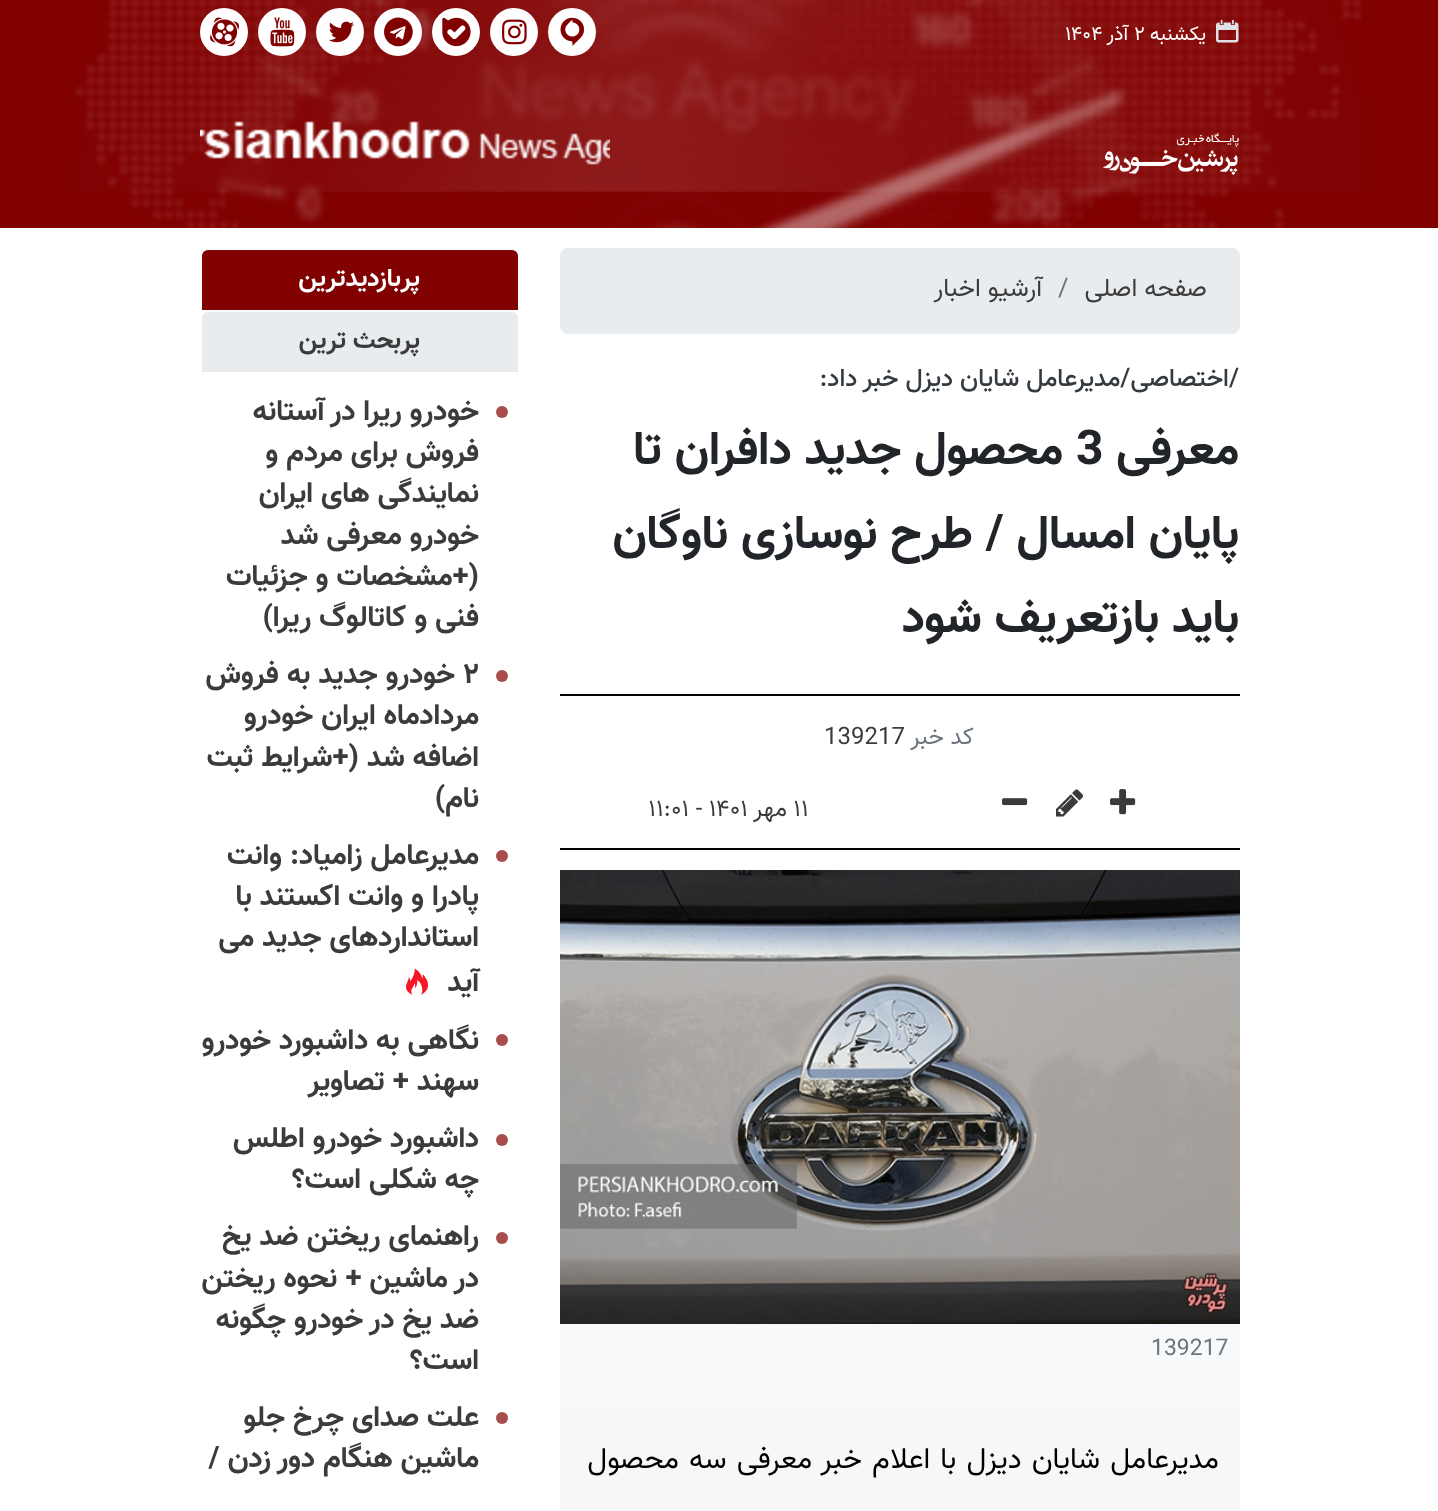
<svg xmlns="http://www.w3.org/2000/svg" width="1438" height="1511">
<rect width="100%" height="100%" fill="#fff"/>
<rect width="1438" height="228" fill="#810101"/>
<image x="74" y="0" width="1288" height="228" href="media/1.png"/>
<image x="1216" y="20" width="23" height="23" href="media/2.png"/>
<text x="1206" y="40" style="font-family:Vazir;font-size:20px;direction:rtl;fill:#fff">یکشنبه</text>
<text x="1134" y="40" style="font-family:Vazir;font-size:20px;fill:#fff">۲</text>
<text x="1128" y="40" style="font-family:Vazir;font-size:20px;direction:rtl;fill:#fff">آذر</text>
<text x="1065" y="40" style="font-family:Vazir;font-size:20px;fill:#fff">۱۴۰۴</text>
<circle cx="572" cy="32" r="24" fill="#fff"/>
<image x="560" y="17" width="24" height="29" href="media/3.png"/>
<circle cx="514" cy="32" r="24" fill="#fff"/>
<image x="502" y="19" width="25" height="26" href="media/4.png"/>
<circle cx="456" cy="32" r="24" fill="#fff"/>
<image x="442" y="17" width="29" height="30" href="media/5.png"/>
<circle cx="398" cy="32" r="24" fill="#fff"/>
<image x="384" y="17" width="29" height="30" href="media/6.png"/>
<circle cx="340" cy="32" r="24" fill="#fff"/>
<image x="328" y="21" width="26" height="22" href="media/7.png"/>
<circle cx="282" cy="32" r="24" fill="#fff"/>
<image x="270" y="17" width="25" height="30" href="media/8.png"/>
<circle cx="224" cy="32" r="24" fill="#fff"/>
<image x="210" y="17" width="29" height="30" href="media/9.png"/>
<image x="200" y="121" width="410" height="44" href="media/10.png"/>
<image x="1103" y="133" width="136" height="43" href="media/11.png"/>
<rect x="560" y="248" width="680" height="86" rx="8" fill="#e9ecef"/>
<text x="1207" y="296" style="font-family:Vazir;font-size:25.6px;direction:rtl;fill:#3b3b3b">صفحه اصلی</text>
<text x="1058" y="296" style="font-family:Vazir;font-size:25.6px;fill:#6c757d">/</text>
<text x="1042" y="296" style="font-family:Vazir;font-size:25.6px;direction:rtl;fill:#3b3b3b">آرشیو اخبار</text>
<text x="1239" y="386" style="font-family:Vazir;font-size:25.6px;font-weight:500;direction:rtl;fill:#343a40">/اختصاصی/مدیرعامل شایان دیزل خبر داد:</text>
<text x="1239" y="464" style="font-family:Vazir;font-size:48px;font-weight:bold;direction:rtl;fill:#212529">معرفی</text>
<text x="1076" y="464" style="font-family:Vazir;font-size:48px;font-weight:bold;fill:#212529">3</text>
<text x="1063" y="464" style="font-family:Vazir;font-size:48px;font-weight:bold;direction:rtl;fill:#212529">محصول جدید دافران تا</text>
<text x="1239" y="548" style="font-family:Vazir;font-size:48px;font-weight:bold;direction:rtl;fill:#212529">پایان امسال / طرح نوسازی ناوگان</text>
<text x="1239" y="632" style="font-family:Vazir;font-size:48px;font-weight:bold;direction:rtl;fill:#212529">باید بازتعریف شود</text>
<rect x="560" y="694" width="680" height="2" fill="#000"/>
<rect x="560" y="848" width="680" height="2" fill="#000"/>
<text x="974" y="744" style="font-family:Vazir;font-size:24px;direction:rtl;fill:#6c757d">کد خبر</text>
<text x="824" y="744" style="font-family:Vazir;font-size:24px;fill:#3b3b3b">139217</text>
<image x="1110" y="789" width="26" height="26" href="media/12.png"/>
<image x="1056" y="789" width="27" height="28" href="media/13.png"/>
<image x="1002" y="798" width="26" height="8" href="media/14.png"/>
<text x="794" y="816" style="font-family:Vazir;font-size:24px;fill:#3b3b3b">۱۱</text>
<text x="787" y="816" style="font-family:Vazir;font-size:24px;direction:rtl;fill:#3b3b3b">مهر</text>
<text x="649" y="816" style="font-family:Vazir;font-size:24px;fill:#3b3b3b">۱۱:۰۱ - ۱۴۰۱</text>
<rect x="560" y="1324" width="680" height="86" fill="#f8f9fa"/>
<image x="560" y="870" width="680" height="454" href="media/15.png"/>
<text x="1151" y="1355" style="font-family:Vazir;font-size:23px;fill:#6c757d">139217</text>
<rect x="560" y="1410" width="680" height="101" fill="#f7f7f7"/>
<text x="1219" y="1468" word-spacing="2" style="font-family:Vazir;font-size:29.6px;direction:rtl;fill:#000">مدیرعامل شایان دیزل با اعلام خبر معرفی سه محصول</text>
<path d="M208 249h304c4 0 7 3 7 7v55h-318v-55c0-4 3-7 7-7z" fill="#810101" stroke="#fff" stroke-width="2"/>
<text x="420" y="286" style="font-family:Vazir;font-size:25.6px;font-weight:bold;direction:rtl;fill:#fff">پربازدیدترین</text>
<path d="M208 311h304c4 0 7 3 7 7v55h-318v-55c0-4 3-7 7-7z" fill="#e9ecef" stroke="#fff" stroke-width="2"/>
<text x="420" y="348" style="font-family:Vazir;font-size:25.6px;font-weight:bold;direction:rtl;fill:#3b3b3b">پربحث ترین</text>
<circle cx="502" cy="412" r="6" fill="#a74d4d"/>
<text x="479" y="420" style="font-family:Vazir;font-size:29.5px;font-weight:bold;direction:rtl;fill:#3b3b3b">خودرو ریرا در آستانه</text>
<text x="479" y="461" style="font-family:Vazir;font-size:29.5px;font-weight:bold;direction:rtl;fill:#3b3b3b">فروش برای مردم و</text>
<text x="479" y="502" style="font-family:Vazir;font-size:29.5px;font-weight:bold;direction:rtl;fill:#3b3b3b">نمایندگی های ایران</text>
<text x="479" y="544" style="font-family:Vazir;font-size:29.5px;font-weight:bold;direction:rtl;fill:#3b3b3b">خودرو معرفی شد</text>
<text x="479" y="585" style="font-family:Vazir;font-size:29.5px;font-weight:bold;direction:rtl;fill:#3b3b3b">(+مشخصات و جزئیات</text>
<text x="479" y="626" style="font-family:Vazir;font-size:29.5px;font-weight:bold;direction:rtl;fill:#3b3b3b">فنی و کاتالوگ ریرا)</text>
<circle cx="502" cy="676" r="6" fill="#a74d4d"/>
<text x="463" y="683" style="font-family:Vazir;font-size:29.5px;font-weight:bold;fill:#3b3b3b">۲</text>
<text x="455" y="683" style="font-family:Vazir;font-size:29.5px;font-weight:bold;direction:rtl;fill:#3b3b3b">خودرو جدید به فروش</text>
<text x="479" y="724" style="font-family:Vazir;font-size:29.5px;font-weight:bold;direction:rtl;fill:#3b3b3b">مردادماه ایران خودرو</text>
<text x="479" y="766" style="font-family:Vazir;font-size:29.5px;font-weight:bold;direction:rtl;fill:#3b3b3b">اضافه شد (+شرایط ثبت</text>
<text x="479" y="807" style="font-family:Vazir;font-size:29.5px;font-weight:bold;direction:rtl;fill:#3b3b3b">نام)</text>
<circle cx="502" cy="856" r="6" fill="#a74d4d"/>
<text x="479" y="864" style="font-family:Vazir;font-size:29.5px;font-weight:bold;direction:rtl;fill:#3b3b3b">مدیرعامل زامیاد: وانت</text>
<text x="479" y="905" style="font-family:Vazir;font-size:29.5px;font-weight:bold;direction:rtl;fill:#3b3b3b">پادرا و وانت اکستند با</text>
<text x="479" y="946" style="font-family:Vazir;font-size:29.5px;font-weight:bold;direction:rtl;fill:#3b3b3b">استانداردهای جدید می</text>
<text x="479" y="991" style="font-family:Vazir;font-size:29.5px;font-weight:bold;direction:rtl;fill:#3b3b3b">آید</text>
<image x="406" y="968" width="22" height="27" href="media/16.png"/>
<circle cx="502" cy="1040" r="6" fill="#a74d4d"/>
<text x="479" y="1049" style="font-family:Vazir;font-size:29.5px;font-weight:bold;direction:rtl;fill:#3b3b3b">نگاهی به داشبورد خودرو</text>
<text x="479" y="1090" style="font-family:Vazir;font-size:29.5px;font-weight:bold;direction:rtl;fill:#3b3b3b">سهند + تصاویر</text>
<circle cx="502" cy="1140" r="6" fill="#a74d4d"/>
<text x="479" y="1147" style="font-family:Vazir;font-size:29.5px;font-weight:bold;direction:rtl;fill:#3b3b3b">داشبورد خودرو اطلس</text>
<text x="479" y="1188" style="font-family:Vazir;font-size:29.5px;font-weight:bold;direction:rtl;fill:#3b3b3b">چه شکلی است؟</text>
<circle cx="502" cy="1238" r="6" fill="#a74d4d"/>
<text x="479" y="1245" style="font-family:Vazir;font-size:29.5px;font-weight:bold;direction:rtl;fill:#3b3b3b">راهنمای ریختن ضد یخ</text>
<text x="479" y="1287" style="font-family:Vazir;font-size:29.5px;font-weight:bold;direction:rtl;fill:#3b3b3b">در ماشین + نحوه ریختن</text>
<text x="479" y="1328" style="font-family:Vazir;font-size:29.5px;font-weight:bold;direction:rtl;fill:#3b3b3b">ضد یخ در خودرو چگونه</text>
<text x="479" y="1369" style="font-family:Vazir;font-size:29.5px;font-weight:bold;direction:rtl;fill:#3b3b3b">است؟</text>
<circle cx="502" cy="1418" r="6" fill="#a74d4d"/>
<text x="479" y="1426" style="font-family:Vazir;font-size:29.5px;font-weight:bold;direction:rtl;fill:#3b3b3b">علت صدای چرخ جلو</text>
<text x="479" y="1467" style="font-family:Vazir;font-size:29.5px;font-weight:bold;direction:rtl;fill:#3b3b3b">ماشین هنگام دور زدن /</text>
</svg>
